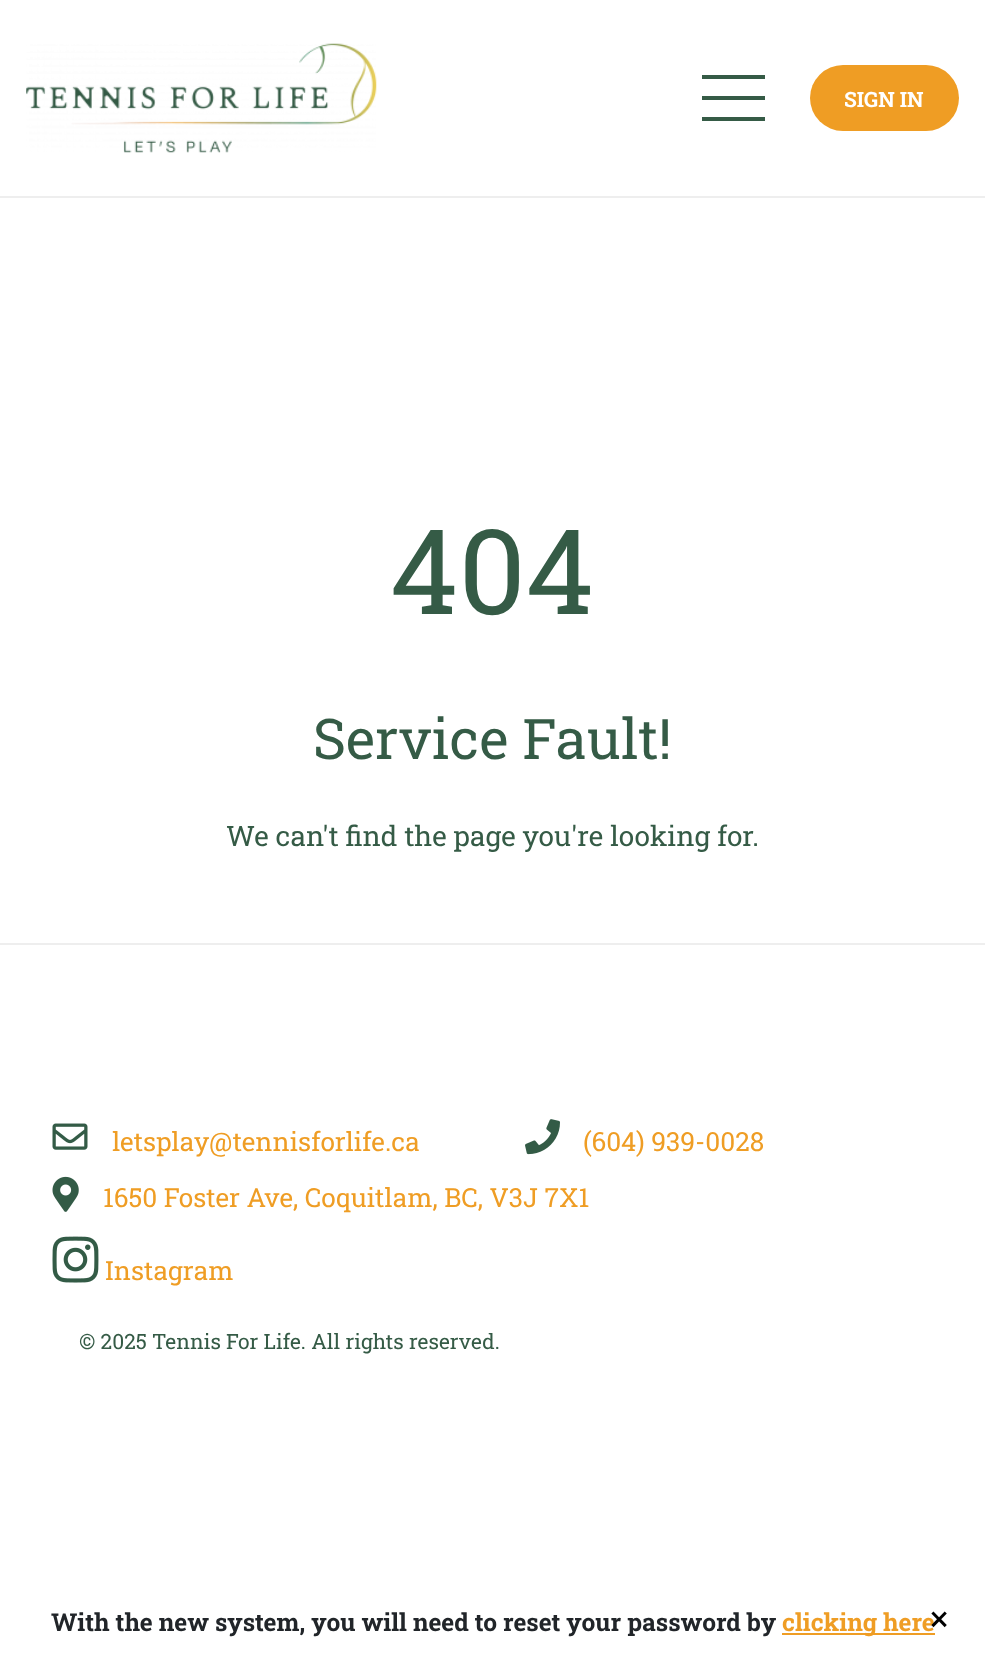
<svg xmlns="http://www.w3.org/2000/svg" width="985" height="1657">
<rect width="100%" height="100%" fill="#fff"/>
<rect y="196" width="985" height="2" fill="#eee"/>
<image x="26" y="43" width="351" height="110" href="media/1.png"/>
<rect x="702" y="75" width="63" height="4" fill="#355b46"/>
<rect x="702" y="96" width="63" height="4" fill="#355b46"/>
<rect x="702" y="117" width="63" height="4" fill="#355b46"/>
<rect x="810" y="65" width="149" height="66" rx="33" fill="#ef9d24"/>
<text x="844" y="107" style="font-family:Roboto Slab;font-size:21px;font-weight:bold;fill:#fff">SIGN IN</text>
<text x="390" y="614" style="font-family:Roboto Slab;font-size:118px;fill:#355b46">404</text>
<text x="313" y="759" style="font-family:Roboto Slab;font-size:56px;fill:#355b46">Service Fault!</text>
<text x="226" y="846" style="font-family:Roboto Slab;font-size:28px;fill:#355b46">We can't find the page you're looking for.</text>
<rect y="943" width="985" height="2" fill="#eee"/>
<image x="52" y="1123" width="36" height="27" href="media/2.png"/>
<text x="112" y="1151" style="font-family:Roboto Slab;font-size:26.25px;fill:#ef9d24">letsplay@tennisforlife.ca</text>
<image x="525" y="1119" width="35" height="36" href="media/3.png"/>
<text x="583" y="1151" style="font-family:Roboto Slab;font-size:26.25px;fill:#ef9d24">(604) 939-0028</text>
<image x="52" y="1176" width="27" height="36" href="media/4.png"/>
<text x="103" y="1207" style="font-family:Roboto Slab;font-size:26.25px;fill:#ef9d24">1650 Foster Ave, Coquitlam, BC, V3J 7X1</text>
<image x="52" y="1236" width="47" height="47" href="media/5.png"/>
<text x="105" y="1280" style="font-family:Roboto Slab;font-size:26.25px;fill:#ef9d24">Instagram</text>
<text x="79" y="1349" style="font-family:Roboto Slab;font-size:21px;fill:#355b46">© 2025 Tennis For Life. All rights reserved.</text>
<text x="51" y="1631" style="font-family:Roboto Slab;font-size:24.5px;font-weight:bold;fill:#212529">With the new system, you will need to reset your password by</text>
<rect x="782" y="1633" width="153" height="2" fill="#ef9d24"/>
<text x="782" y="1631" style="font-family:Roboto Slab;font-size:24.5px;font-weight:bold;fill:#ef9d24">clicking here</text>
<text x="930" y="1631" style="font-family:Roboto Slab;font-size:35px;fill:#000">×</text>
</svg>
